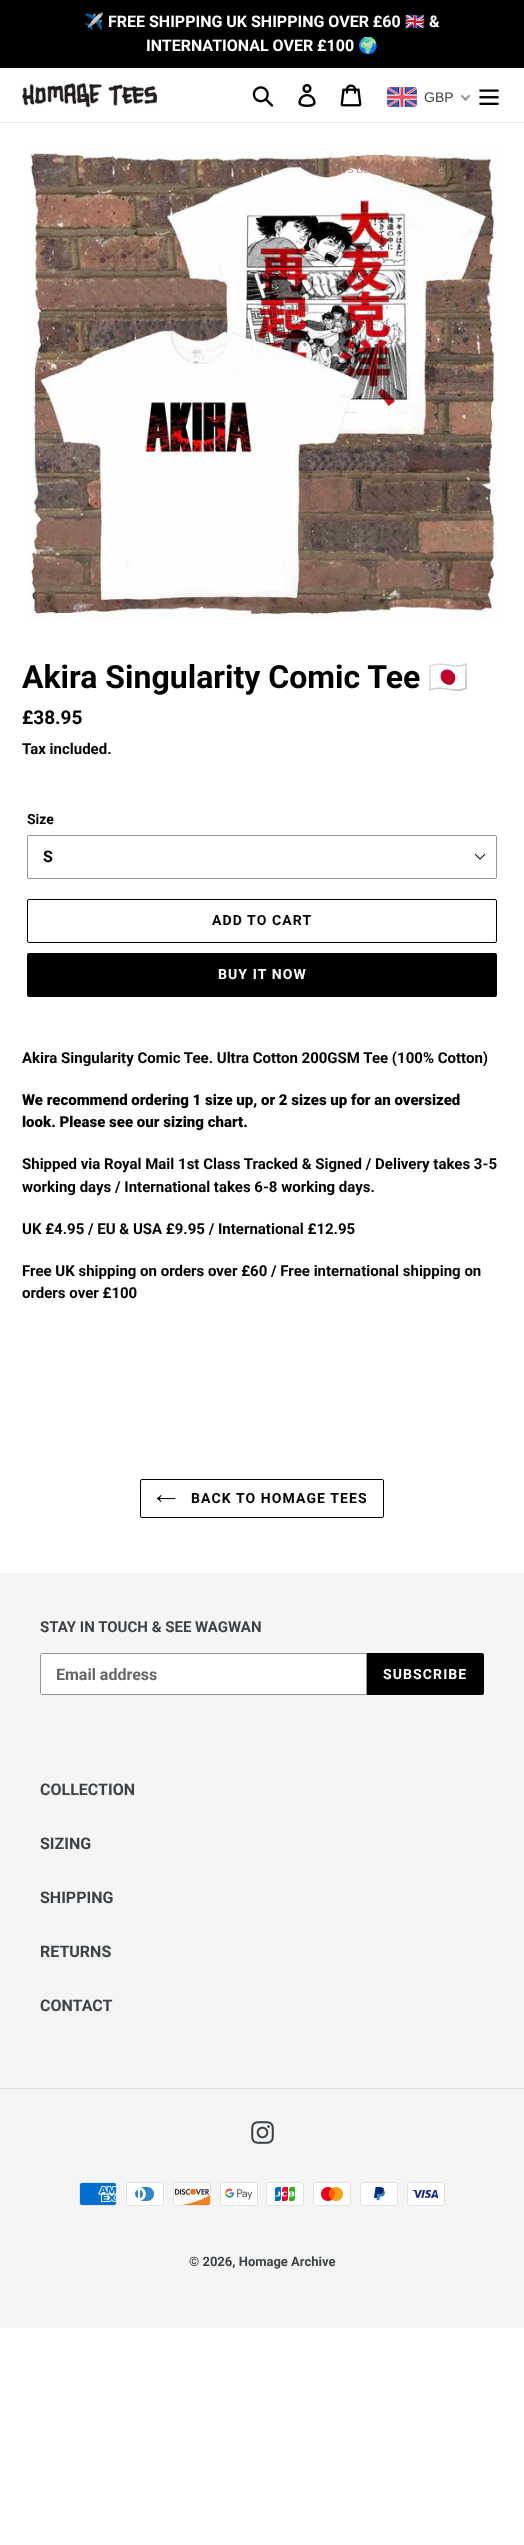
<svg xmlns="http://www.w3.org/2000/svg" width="524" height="2545">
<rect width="100%" height="100%" fill="#fff"/>
<rect width="524" height="68" fill="#000"/>
<text x="84" y="27" style="font-family:Noto Color Emoji;font-size:16px;font-weight:bold;fill:#fff">✈️</text>
<text x="108" y="27" style="font-family:Roboto;font-size:16px;font-weight:bold;fill:#fff">FREE SHIPPING UK SHIPPING OVER £60</text>
<text x="405" y="27" style="font-family:Noto Color Emoji;font-size:16px;font-weight:bold;fill:#fff">🇬🇧</text>
<text x="429" y="27" style="font-family:Roboto;font-size:16px;font-weight:bold;fill:#fff">&amp;</text>
<text x="146" y="51" style="font-family:Roboto;font-size:16px;font-weight:bold;fill:#fff">INTERNATIONAL OVER £100</text>
<text x="358" y="51" style="font-family:Noto Color Emoji;font-size:16px;font-weight:bold;fill:#fff">🌍</text>
<rect y="122" width="524" height="1" fill="#e8e9eb"/>
<image x="22" y="83" width="135" height="24" href="media/1.png"/>
<image x="252" y="86" width="22" height="21" href="media/2.png"/>
<image x="298" y="84" width="18" height="23" href="media/3.png"/>
<image x="340" y="84" width="22" height="23" href="media/4.png"/>
<image x="479" y="89" width="20" height="16" href="media/5.png"/>
<image x="387" y="87" width="30" height="20" href="media/6.png"/>
<text x="424" y="102" style="font-family:Liberation Sans;font-size:14px;fill:#403f3f">GBP</text>
<path d="M469 94.5l1.5 1.5l-5 5l-1.5-1.5z" fill="#999"/>
<path d="M462 94.5l5 5l-1.5 1.5l-5-5z" fill="#999"/>
<image x="29" y="149" width="469" height="469" href="media/7.png"/>
<text x="340" y="173" style="font-family:Liberation Sans;font-size:9.75px;fill:#b59588">US Dollar</text>
<text x="22" y="688" style="font-family:Roboto;font-size:32px;font-weight:bold;fill:#000">Akira Singularity Comic Tee</text>
<text x="428" y="688" style="font-family:Noto Color Emoji;font-size:32px;font-weight:bold;fill:#000">🇯🇵</text>
<text x="22" y="724" style="font-family:Roboto;font-size:19px;font-weight:bold;fill:#000">£38.95</text>
<text x="22" y="754" style="font-family:Roboto;font-size:15px;font-weight:bold;fill:#000">Tax included.</text>
<text x="27" y="824" style="font-family:Roboto;font-size:14px;font-weight:bold;fill:#000">Size</text>
<image x="474" y="853" width="12" height="7" href="media/8.png"/>
<rect x="27.5" y="835.5" width="469" height="43" rx="1.5" fill="none" stroke="#949494"/>
<text x="43" y="862" style="font-family:Roboto;font-size:16px;font-weight:bold;fill:#000">S</text>
<rect x="27.5" y="899.5" width="469" height="43" rx="1.5" fill="none" stroke="#000"/>
<text x="212" y="925" style="font-family:Roboto;font-size:14px;font-weight:bold;letter-spacing:1.1px;fill:#000">ADD TO CART</text>
<rect x="27" y="953" width="470" height="44" rx="2" fill="#000"/>
<text x="218" y="979" style="font-family:Roboto;font-size:14px;font-weight:bold;letter-spacing:1.1px;fill:#fff">BUY IT NOW</text>
<text x="22" y="1063" style="font-family:Roboto;font-size:15px;font-weight:bold;fill:#000">Akira Singularity Comic Tee. Ultra Cotton 200GSM Tee (100% Cotton)</text>
<text x="22" y="1105" style="font-family:Roboto;font-size:15px;font-weight:900;fill:#000">We recommend ordering 1 size up, or 2 sizes up for an oversized</text>
<text x="22" y="1127" style="font-family:Roboto;font-size:15px;font-weight:900;fill:#000">look. Please see our sizing chart.</text>
<text x="22" y="1169" style="font-family:Roboto;font-size:15px;font-weight:bold;fill:#000">Shipped via Royal Mail 1st Class Tracked &amp; Signed / Delivery takes 3-5</text>
<text x="22" y="1192" style="font-family:Roboto;font-size:15px;font-weight:bold;fill:#000">working days / International takes 6-8 working days.</text>
<text x="22" y="1234" style="font-family:Roboto;font-size:15px;font-weight:bold;fill:#000">UK £4.95 / EU &amp; USA £9.95 / International £12.95</text>
<text x="22" y="1276" style="font-family:Roboto;font-size:15px;font-weight:bold;fill:#000">Free UK shipping on orders over £60 / Free international shipping on</text>
<text x="22" y="1298" style="font-family:Roboto;font-size:15px;font-weight:bold;fill:#000">orders over £100</text>
<rect x="140.5" y="1479.5" width="243" height="38" rx="1.5" fill="none" stroke="#000"/>
<image x="156" y="1495" width="20" height="8" href="media/9.png"/>
<text x="191" y="1503" style="font-family:Roboto;font-size:14px;font-weight:bold;letter-spacing:1.1px;fill:#000">BACK TO HOMAGE TEES</text>
<rect y="1573" width="524" height="755" fill="#f5f5f5"/>
<text x="40" y="1632" style="font-family:Roboto;font-size:15px;font-weight:bold;fill:#3d4246">STAY IN TOUCH &amp; SEE WAGWAN</text>
<path d="M42 1653.5h324.5v41h-324.5c-1 0-1.5-.5-1.5-1.5v-38c0-1 .5-1.5 1.5-1.5z" fill="#fff" stroke="#949494"/>
<text x="56" y="1680" style="font-family:Roboto;font-size:16px;font-weight:bold;fill:#666">Email address</text>
<path d="M367 1653h115c1 0 2 1 2 2v38c0 1-1 2-2 2h-115z" fill="#000"/>
<text x="383" y="1679" style="font-family:Roboto;font-size:14px;font-weight:bold;letter-spacing:1.1px;fill:#fff">SUBSCRIBE</text>
<text x="40" y="1795" style="font-family:Roboto;font-size:16px;font-weight:bold;fill:#3d4246">COLLECTION</text>
<text x="40" y="1849" style="font-family:Roboto;font-size:16px;font-weight:bold;fill:#3d4246">SIZING</text>
<text x="40" y="1903" style="font-family:Roboto;font-size:16px;font-weight:bold;fill:#3d4246">SHIPPING</text>
<text x="40" y="1957" style="font-family:Roboto;font-size:16px;font-weight:bold;fill:#3d4246">RETURNS</text>
<text x="40" y="2011" style="font-family:Roboto;font-size:16px;font-weight:bold;fill:#3d4246">CONTACT</text>
<rect y="2088" width="524" height="1" fill="#dcdcdc"/>
<image x="251" y="2121" width="23" height="23" href="media/10.png"/>
<image x="79" y="2182" width="38" height="24" href="media/11.png"/>
<image x="126" y="2182" width="38" height="24" href="media/12.png"/>
<image x="173" y="2182" width="38" height="24" href="media/13.png"/>
<image x="220" y="2182" width="38" height="24" href="media/14.png"/>
<image x="266" y="2182" width="38" height="24" href="media/15.png"/>
<image x="313" y="2182" width="38" height="24" href="media/16.png"/>
<image x="360" y="2182" width="38" height="24" href="media/17.png"/>
<image x="407" y="2182" width="38" height="24" href="media/18.png"/>
<text x="189" y="2266" style="font-family:Roboto;font-size:13px;font-weight:bold;fill:#3d4246">© 2026, Homage Archive</text>
</svg>
